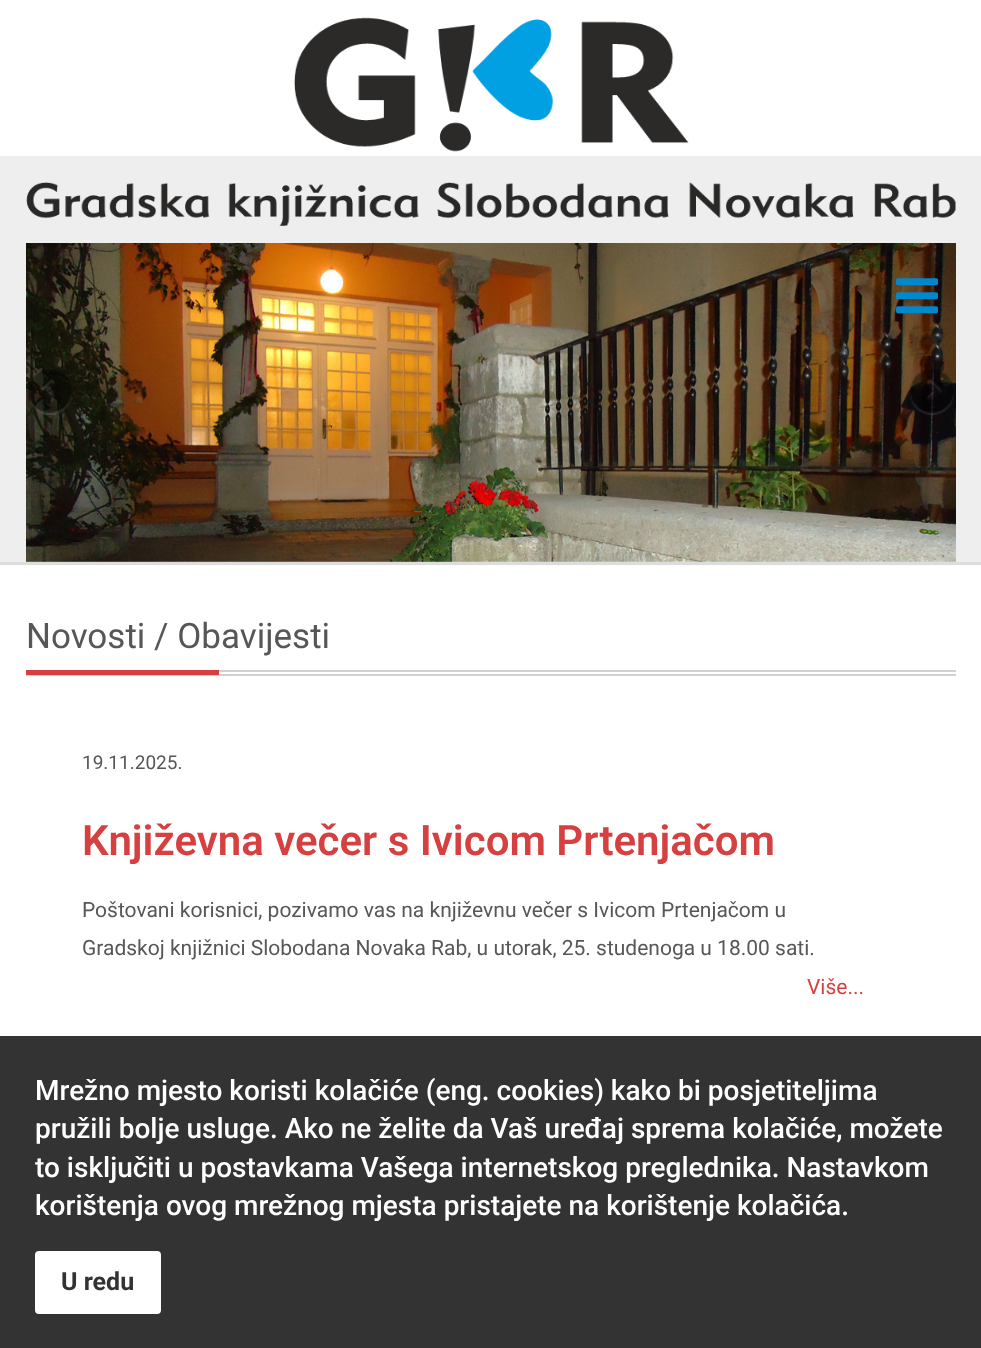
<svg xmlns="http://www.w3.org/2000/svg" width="981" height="1348">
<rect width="100%" height="100%" fill="#fff"/>
<rect y="156" width="981" height="406" fill="#eee"/>
<image x="26" y="17" width="930" height="209" href="media/1.png"/>
<rect y="562" width="981" height="3" fill="#ddd"/>
<rect y="565" width="981" height="1" fill="#fcfcfc"/>
<image x="26" y="243" width="930" height="319" href="media/2.png"/>
<image x="28" y="369" width="44" height="46" href="media/3.png"/>
<image x="909" y="369" width="45" height="46" href="media/4.png"/>
<image x="896" y="278" width="42" height="36" href="media/5.png"/>
<rect x="26" y="674" width="930" height="2" fill="#d1d1d1"/>
<text x="26" y="648" style="font-family:Roboto;font-size:35px;fill:#575757">Novosti / Obavijesti</text>
<rect x="26" y="670" width="193" height="5" fill="#d74040"/>
<rect x="219" y="670" width="737" height="2" fill="#d1d1d1"/>
<text x="82" y="769" style="font-family:Roboto;font-size:19px;fill:#575757">19.11.2025.</text>
<text x="82" y="855" style="font-family:Roboto;font-size:42px;font-weight:600;fill:#d74040">Književna večer s Ivicom Prtenjačom</text>
<text x="82" y="917" style="font-family:Roboto;font-size:21px;fill:#575757">Poštovani korisnici, pozivamo vas na književnu večer s Ivicom Prtenjačom u</text>
<text x="82" y="955" style="font-family:Roboto;font-size:21px;fill:#575757">Gradskoj knjižnici Slobodana Novaka Rab, u utorak, 25. studenoga u 18.00 sati.</text>
<text x="807" y="994" style="font-family:Roboto;font-size:21px;fill:#d74040">Više...</text>
<rect y="1036" width="981" height="312" fill="#333"/>
<text x="35" y="1100" style="font-family:Roboto;font-size:28px;font-weight:500;fill:#fff">Mrežno mjesto koristi kolačiće (eng. cookies) kako bi posjetiteljima</text>
<text x="35" y="1138" style="font-family:Roboto;font-size:28px;font-weight:500;fill:#fff">pružili bolje usluge. Ako ne želite da Vaš uređaj sprema kolačiće, možete</text>
<text x="35" y="1177" style="font-family:Roboto;font-size:28px;font-weight:500;fill:#fff">to isključiti u postavkama Vašega internetskog preglednika. Nastavkom</text>
<text x="35" y="1215" style="font-family:Roboto;font-size:28px;font-weight:500;fill:#fff">korištenja ovog mrežnog mjesta pristajete na korištenje kolačića.</text>
<rect x="35" y="1251" width="126" height="63" rx="4" fill="#fff"/>
<text x="61" y="1290" style="font-family:Roboto;font-size:25px;font-weight:bold;fill:#333">U redu</text>
</svg>
